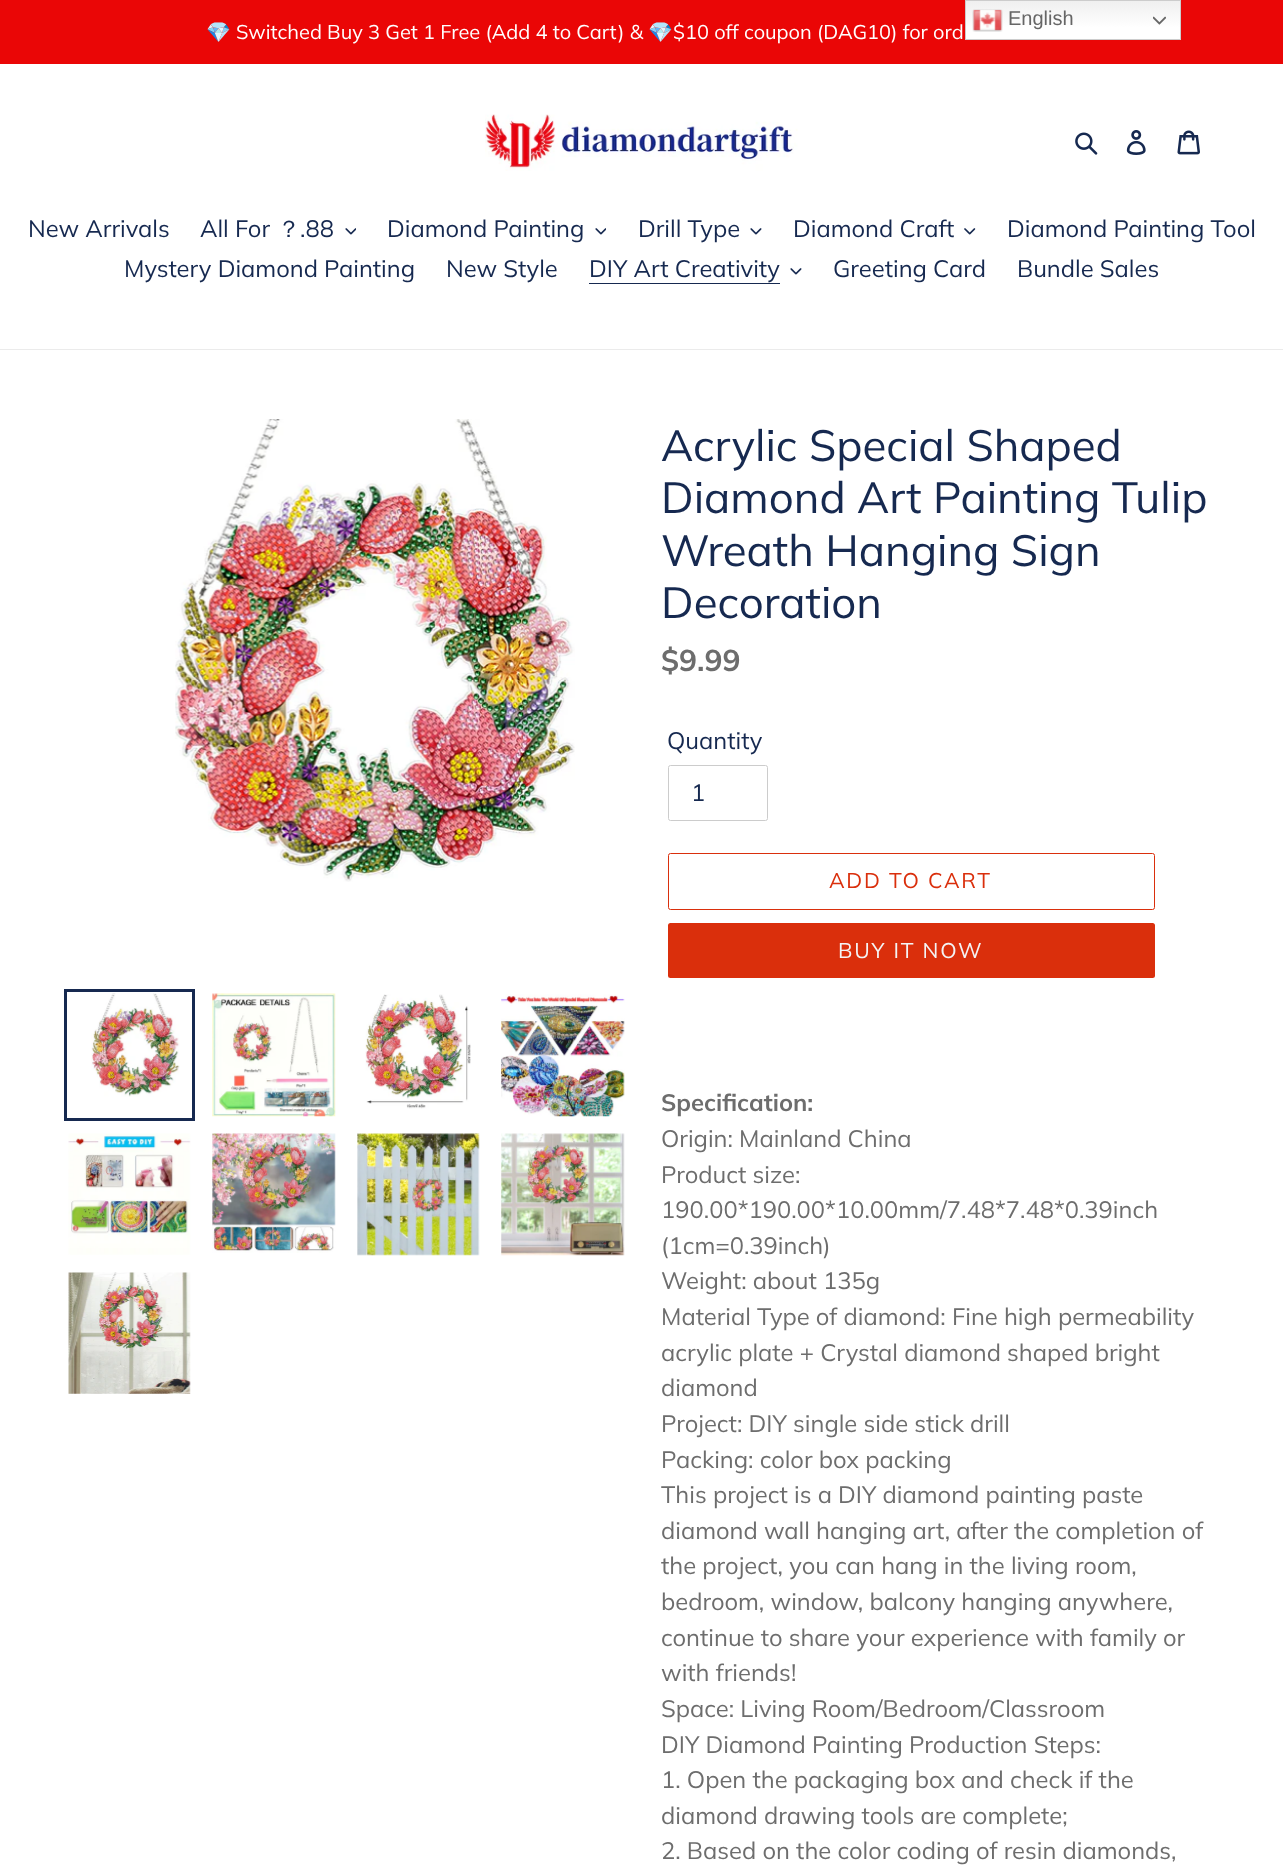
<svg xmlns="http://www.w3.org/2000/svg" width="1283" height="1876">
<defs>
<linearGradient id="g1" gradientUnits="userSpaceOnUse" x1="1073" y1="0" x2="1073" y2="40"><stop offset="0" stop-color="#efefef"/><stop offset="0.7" stop-color="#fff"/></linearGradient>
</defs>
<rect width="100%" height="100%" fill="#fff"/>
<rect width="1283" height="64" fill="#ea0606"/>
<rect x="966" y="1" width="214" height="38" fill="url(#g1)"/>
<rect x="965.5" y="0.5" width="215" height="39" fill="none" stroke="#ccc"/>
<image x="972" y="9" width="31" height="23" href="media/1.png"/>
<text x="1008" y="25" style="font-family:Liberation Sans;font-size:20px;fill:#666">English</text>
<image x="1153" y="16" width="13" height="9" href="media/2.png"/>
<text x="206" y="39" style="font-family:Noto Color Emoji;font-size:20px;fill:#fff">💎</text>
<text x="236" y="39" style="font-family:Muli;font-size:20px;fill:#fff">Switched Buy 3 Get 1 Free (Add 4 to Cart) &amp;</text>
<text x="648" y="39" style="font-family:Noto Color Emoji;font-size:20px;fill:#fff">💎</text>
<text x="673" y="39" style="font-family:Muli;font-size:20px;fill:#fff">$10 off coupon (DAG10) for ord</text>
<image x="485" y="114" width="313" height="57" href="media/3.png"/>
<image x="1075" y="132" width="23" height="23" href="media/4.png"/>
<image x="1126" y="130" width="20" height="25" href="media/5.png"/>
<image x="1177" y="130" width="23" height="25" href="media/6.png"/>
<rect y="349" width="1283" height="1" fill="#ebebeb"/>
<text x="28" y="237" style="font-family:Muli;font-size:23.75px;fill:#162950">New Arrivals</text>
<text x="200" y="237" style="font-family:Muli;font-size:23.75px;fill:#162950">All For</text>
<text x="277" y="237" style="font-family:WenQuanYi Zen Hei;font-size:23.75px;font-weight:500;fill:#162950">？</text>
<text x="300" y="237" style="font-family:Muli;font-size:23.75px;fill:#162950">.88</text>
<image x="345" y="228" width="11" height="7" href="media/7.png"/>
<text x="387" y="237" style="font-family:Muli;font-size:23.75px;fill:#162950">Diamond Painting</text>
<image x="595" y="228" width="11" height="7" href="media/7.png"/>
<text x="638" y="237" style="font-family:Muli;font-size:23.75px;fill:#162950">Drill Type</text>
<image x="750" y="228" width="12" height="7" href="media/8.png"/>
<text x="793" y="237" style="font-family:Muli;font-size:23.75px;fill:#162950">Diamond Craft</text>
<image x="964" y="228" width="12" height="7" href="media/9.png"/>
<text x="1007" y="237" style="font-family:Muli;font-size:23.75px;fill:#162950">Diamond Painting Tool</text>
<text x="124" y="277" style="font-family:Muli;font-size:23.75px;fill:#162950">Mystery Diamond Painting</text>
<text x="446" y="277" style="font-family:Muli;font-size:23.75px;fill:#162950">New Style</text>
<text x="589" y="277" style="font-family:Muli;font-size:23.75px;fill:#162950">DIY Art Creativity</text>
<rect x="589" y="283" width="191" height="1" fill="#162950"/>
<image x="790" y="268" width="12" height="7" href="media/8.png"/>
<text x="833" y="277" style="font-family:Muli;font-size:23.75px;fill:#162950">Greeting Card</text>
<text x="1017" y="277" style="font-family:Muli;font-size:23.75px;fill:#162950">Bundle Sales</text>
<image x="175" y="419" width="400" height="463" href="media/10.png"/>
<rect x="65.5" y="990.5" width="128" height="129" fill="none" stroke="#162950" stroke-width="3"/>
<image x="91" y="993" width="89" height="104" href="media/11.png"/>
<image x="212" y="993" width="124" height="124" href="media/12.png"/>
<image x="365" y="994" width="106" height="115" href="media/13.png"/>
<image x="501" y="994" width="124" height="123" href="media/14.png"/>
<image x="68" y="1133" width="123" height="122" href="media/15.png"/>
<image x="212" y="1133" width="124" height="120" href="media/16.png"/>
<image x="357" y="1133" width="123" height="123" href="media/17.png"/>
<image x="501" y="1133" width="124" height="123" href="media/18.png"/>
<image x="68" y="1272" width="123" height="122" href="media/19.png"/>
<text x="661" y="461" style="font-family:Muli;font-size:43.75px;fill:#162950">Acrylic Special Shaped</text>
<text x="661" y="513" style="font-family:Muli;font-size:43.75px;fill:#162950">Diamond Art Painting Tulip</text>
<text x="661" y="566" style="font-family:Muli;font-size:43.75px;fill:#162950">Wreath Hanging Sign</text>
<text x="661" y="618" style="font-family:Muli;font-size:43.75px;fill:#162950">Decoration</text>
<text x="661" y="671" style="font-family:Muli;font-size:30px;font-weight:bold;fill:#6d6d6d">$9.99</text>
<text x="667" y="749" style="font-family:Muli;font-size:23.75px;fill:#162950">Quantity</text>
<rect x="668.5" y="765.5" width="99" height="55" rx="2" fill="none" stroke="#ccc"/>
<text x="691" y="801" style="font-family:Muli;font-size:23.75px;fill:#162950">1</text>
<rect x="668.5" y="853.5" width="486" height="56" rx="2" fill="none" stroke="#da2f0c"/>
<text x="829" y="888" style="font-family:Muli;font-size:21.25px;letter-spacing:1.75px;fill:#da2f0c">ADD TO CART</text>
<rect x="668" y="923" width="487" height="55" rx="2.5" fill="#da2f0c"/>
<text x="838" y="958" style="font-family:Muli;font-size:21.25px;letter-spacing:1.75px;fill:#f4f4f5">BUY IT NOW</text>
<text x="661" y="1111" style="font-family:Muli;font-size:23.75px;font-weight:bold;fill:#6d6d6d">Specification:</text>
<text x="661" y="1147" style="font-family:Muli;font-size:23.75px;fill:#6d6d6d">Origin: Mainland China</text>
<text x="661" y="1183" style="font-family:Muli;font-size:23.75px;fill:#6d6d6d">Product size:</text>
<text x="661" y="1218" style="font-family:Muli;font-size:23.75px;fill:#6d6d6d">190.00*190.00*10.00mm/7.48*7.48*0.39inch</text>
<text x="661" y="1254" style="font-family:Muli;font-size:23.75px;fill:#6d6d6d">(1cm=0.39inch)</text>
<text x="661" y="1289" style="font-family:Muli;font-size:23.75px;fill:#6d6d6d">Weight: about 135g</text>
<text x="661" y="1325" style="font-family:Muli;font-size:23.75px;fill:#6d6d6d">Material Type of diamond: Fine high permeability</text>
<text x="661" y="1361" style="font-family:Muli;font-size:23.75px;fill:#6d6d6d">acrylic plate + Crystal diamond shaped bright</text>
<text x="661" y="1396" style="font-family:Muli;font-size:23.75px;fill:#6d6d6d">diamond</text>
<text x="661" y="1432" style="font-family:Muli;font-size:23.75px;fill:#6d6d6d">Project: DIY single side stick drill</text>
<text x="661" y="1468" style="font-family:Muli;font-size:23.75px;fill:#6d6d6d">Packing: color box packing</text>
<text x="661" y="1503" style="font-family:Muli;font-size:23.75px;fill:#6d6d6d">This project is a DIY diamond painting paste</text>
<text x="661" y="1539" style="font-family:Muli;font-size:23.75px;fill:#6d6d6d">diamond wall hanging art, after the completion of</text>
<text x="661" y="1574" style="font-family:Muli;font-size:23.75px;fill:#6d6d6d">the project, you can hang in the living room,</text>
<text x="661" y="1610" style="font-family:Muli;font-size:23.75px;fill:#6d6d6d">bedroom, window, balcony hanging anywhere,</text>
<text x="661" y="1646" style="font-family:Muli;font-size:23.75px;fill:#6d6d6d">continue to share your experience with family or</text>
<text x="661" y="1681" style="font-family:Muli;font-size:23.75px;fill:#6d6d6d">with friends!</text>
<text x="661" y="1717" style="font-family:Muli;font-size:23.75px;fill:#6d6d6d">Space: Living Room/Bedroom/Classroom</text>
<text x="661" y="1753" style="font-family:Muli;font-size:23.75px;fill:#6d6d6d">DIY Diamond Painting Production Steps:</text>
<text x="661" y="1788" style="font-family:Muli;font-size:23.75px;fill:#6d6d6d">1. Open the packaging box and check if the</text>
<text x="661" y="1824" style="font-family:Muli;font-size:23.75px;fill:#6d6d6d">diamond drawing tools are complete;</text>
<text x="661" y="1859" style="font-family:Muli;font-size:23.75px;fill:#6d6d6d">2. Based on the color coding of resin diamonds,</text>
</svg>
